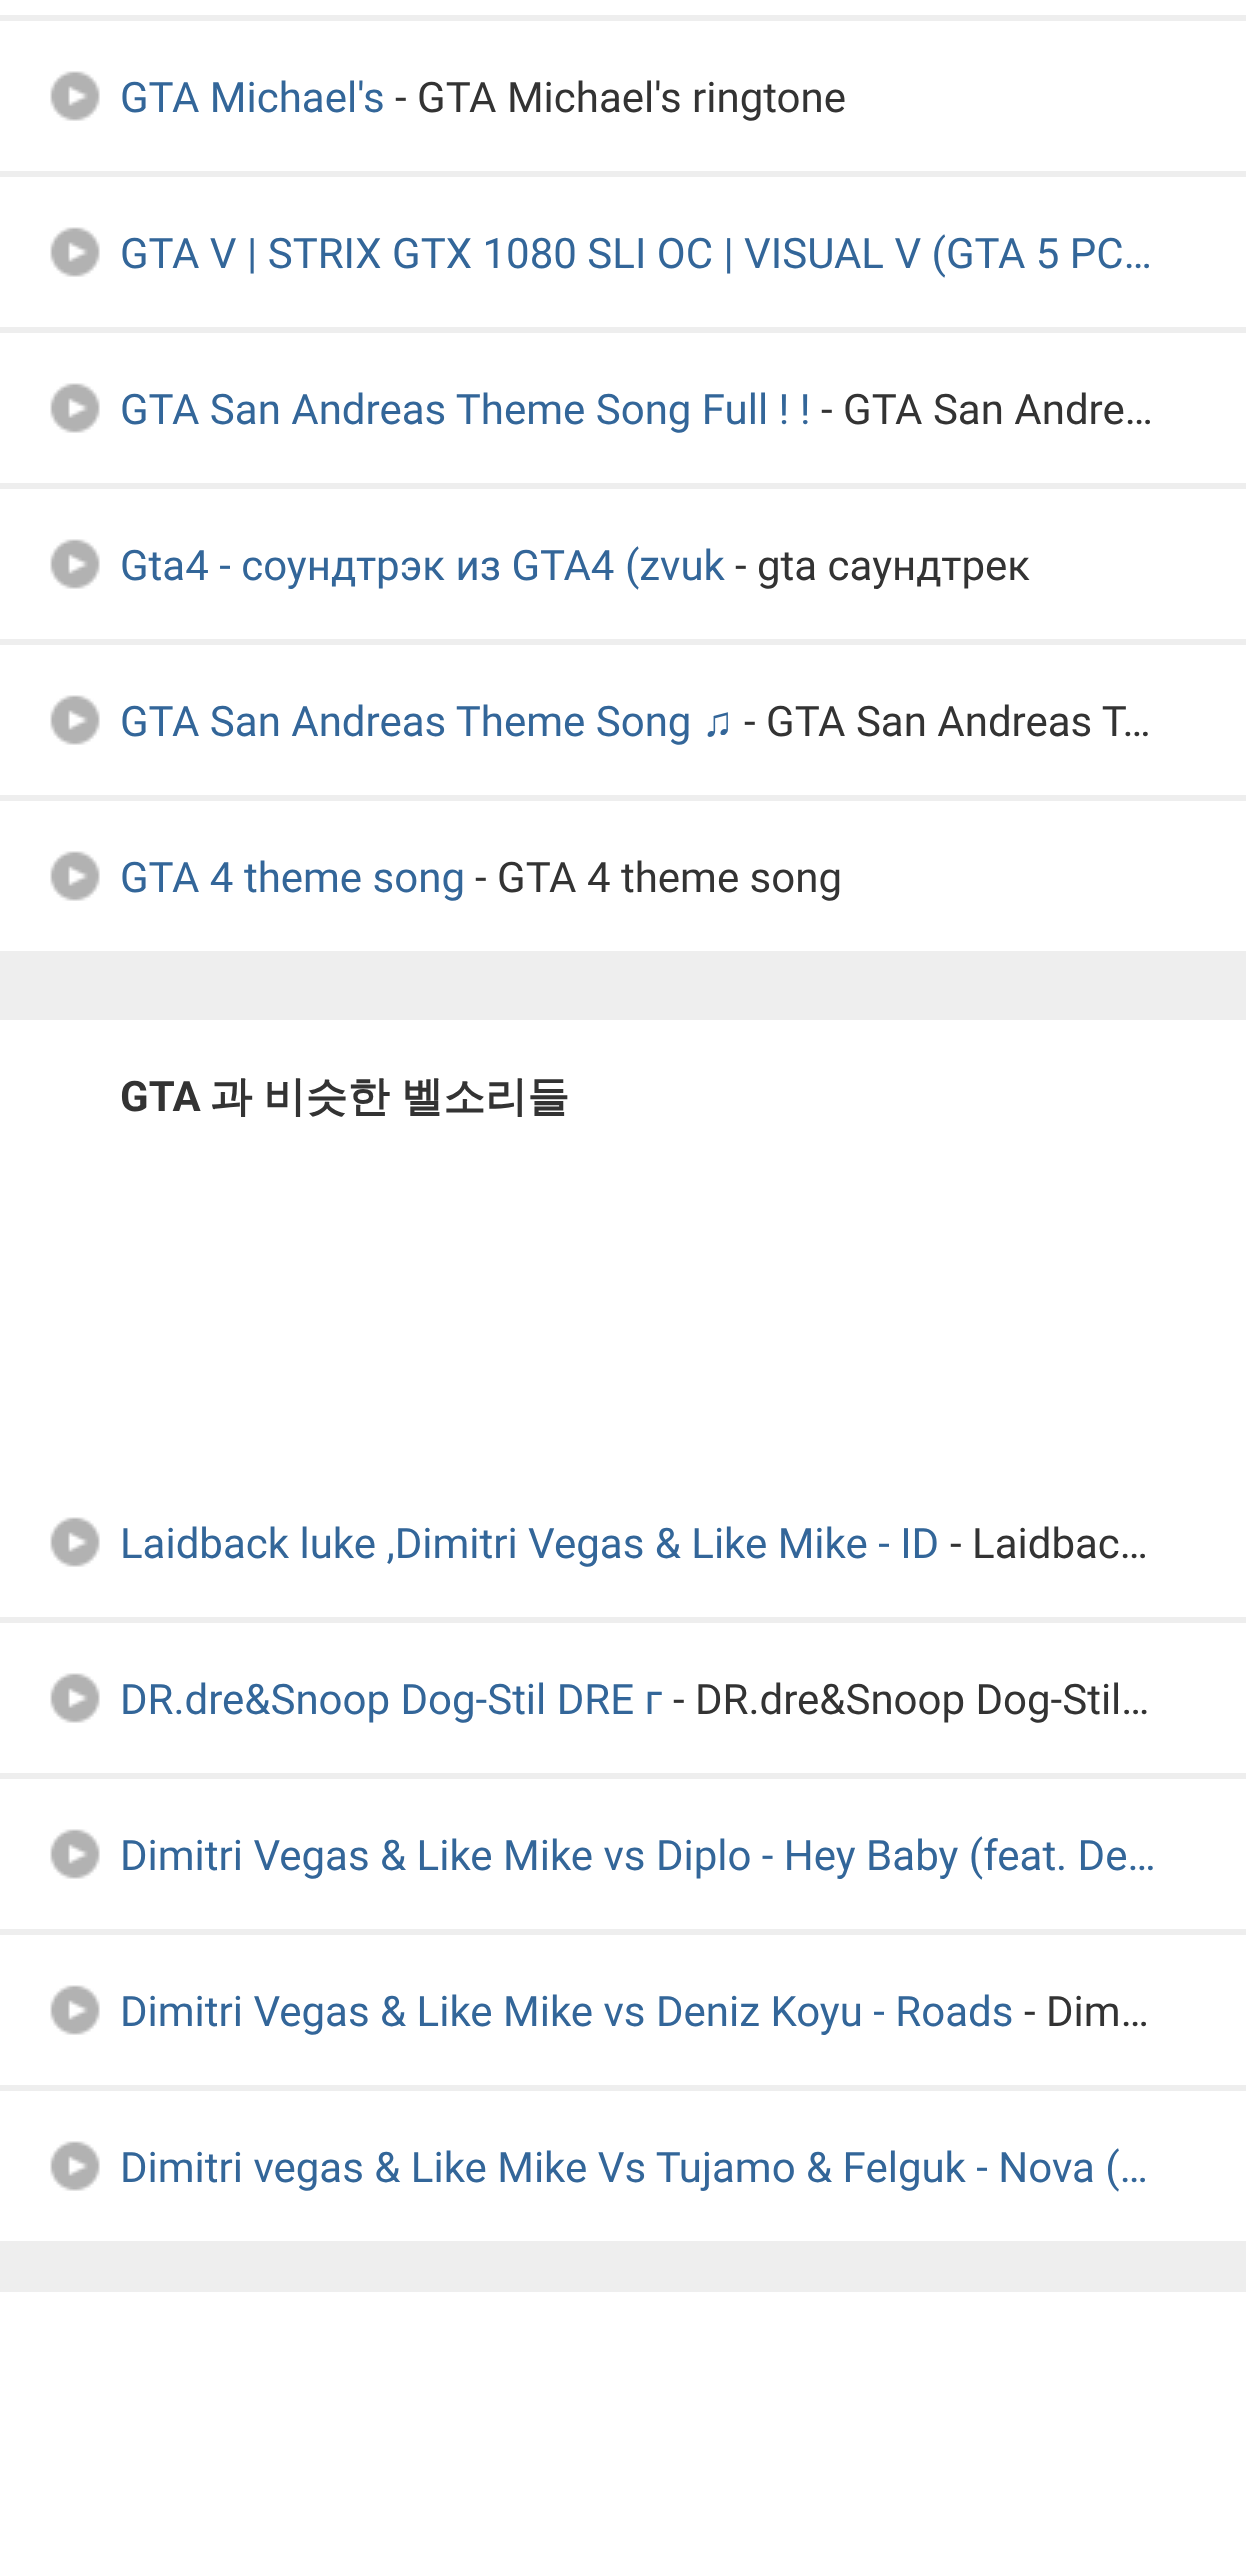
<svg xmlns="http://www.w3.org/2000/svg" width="1246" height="2564">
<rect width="100%" height="100%" fill="#eee"/>
<rect width="1246" height="15" fill="#fff"/>
<rect y="21" width="1246" height="150" fill="#fff"/>
<image x="50" y="71" width="50" height="50" href="media/1.png"/>
<text x="120" y="112" style="font-family:Roboto;font-size:42px;fill:#369">GTA Michael's</text>
<text x="395" y="112" style="font-family:Roboto;font-size:42px;fill:#333">- GTA Michael's ringtone</text>
<rect y="177" width="1246" height="150" fill="#fff"/>
<image x="50" y="227" width="50" height="50" href="media/1.png"/>
<text x="120" y="268" style="font-family:Roboto;font-size:42px;fill:#369">GTA V | STRIX GTX 1080 SLI OC | VISUAL V (GTA 5 PC…</text>
<rect y="333" width="1246" height="150" fill="#fff"/>
<image x="50" y="383" width="50" height="50" href="media/1.png"/>
<text x="120" y="424" style="font-family:Roboto;font-size:42px;fill:#369">GTA San Andreas Theme Song Full ! !</text>
<text x="821" y="424" style="font-family:Roboto;font-size:42px;fill:#333">- GTA San Andre…</text>
<rect y="489" width="1246" height="150" fill="#fff"/>
<image x="50" y="539" width="50" height="50" href="media/1.png"/>
<text x="120" y="580" style="font-family:Roboto;font-size:42px;fill:#369">Gta4 - соундтрэк из GTA4 (zvuk</text>
<text x="735" y="580" style="font-family:Roboto;font-size:42px;fill:#333">- gta саундтрек</text>
<rect y="645" width="1246" height="150" fill="#fff"/>
<image x="50" y="695" width="50" height="50" href="media/1.png"/>
<text x="120" y="736" style="font-family:Roboto;font-size:42px;fill:#369">GTA San Andreas Theme Song</text>
<text x="702" y="736" style="font-family:Liberation Sans;font-size:42px;fill:#369">♫</text>
<text x="744" y="736" style="font-family:Roboto;font-size:42px;fill:#333">- GTA San Andreas T…</text>
<rect y="801" width="1246" height="150" fill="#fff"/>
<image x="50" y="851" width="50" height="50" href="media/1.png"/>
<text x="120" y="892" style="font-family:Roboto;font-size:42px;fill:#369">GTA 4 theme song</text>
<text x="475" y="892" style="font-family:Roboto;font-size:42px;fill:#333">- GTA 4 theme song</text>
<rect y="1020" width="1246" height="597" fill="#fff"/>
<text x="120" y="1111" style="font-family:Roboto;font-size:42px;font-weight:bold;fill:#333">GTA</text>
<text x="210" y="1111" word-spacing="-1" style="font-family:WenQuanYi Zen Hei;font-size:42px;font-weight:bold;fill:#333">과 비슷한 벨소리들</text>
<image x="50" y="1517" width="50" height="50" href="media/1.png"/>
<text x="120" y="1558" style="font-family:Roboto;font-size:42px;fill:#369">Laidback luke ,Dimitri Vegas &amp; Like Mike - ID</text>
<text x="950" y="1558" style="font-family:Roboto;font-size:42px;fill:#333">- Laidbac…</text>
<rect y="1623" width="1246" height="150" fill="#fff"/>
<image x="50" y="1673" width="50" height="50" href="media/1.png"/>
<text x="120" y="1714" style="font-family:Roboto;font-size:42px;fill:#369">DR.dre&amp;Snoop Dog-Stil DRE г</text>
<text x="673" y="1714" style="font-family:Roboto;font-size:42px;fill:#333">- DR.dre&amp;Snoop Dog-Stil…</text>
<rect y="1779" width="1246" height="150" fill="#fff"/>
<image x="50" y="1829" width="50" height="50" href="media/1.png"/>
<text x="120" y="1870" style="font-family:Roboto;font-size:42px;fill:#369">Dimitri Vegas &amp; Like Mike vs Diplo - Hey Baby (feat. De…</text>
<rect y="1935" width="1246" height="150" fill="#fff"/>
<image x="50" y="1985" width="50" height="50" href="media/1.png"/>
<text x="120" y="2026" style="font-family:Roboto;font-size:42px;fill:#369">Dimitri Vegas &amp; Like Mike vs Deniz Koyu - Roads</text>
<text x="1024" y="2026" style="font-family:Roboto;font-size:42px;fill:#333">- Dim…</text>
<rect y="2091" width="1246" height="150" fill="#fff"/>
<image x="50" y="2141" width="50" height="50" href="media/1.png"/>
<text x="120" y="2182" style="font-family:Roboto;font-size:42px;fill:#369">Dimitri vegas &amp; Like Mike Vs Tujamo &amp; Felguk - Nova (…</text>
<rect y="2292" width="1246" height="272" fill="#fff"/>
</svg>
